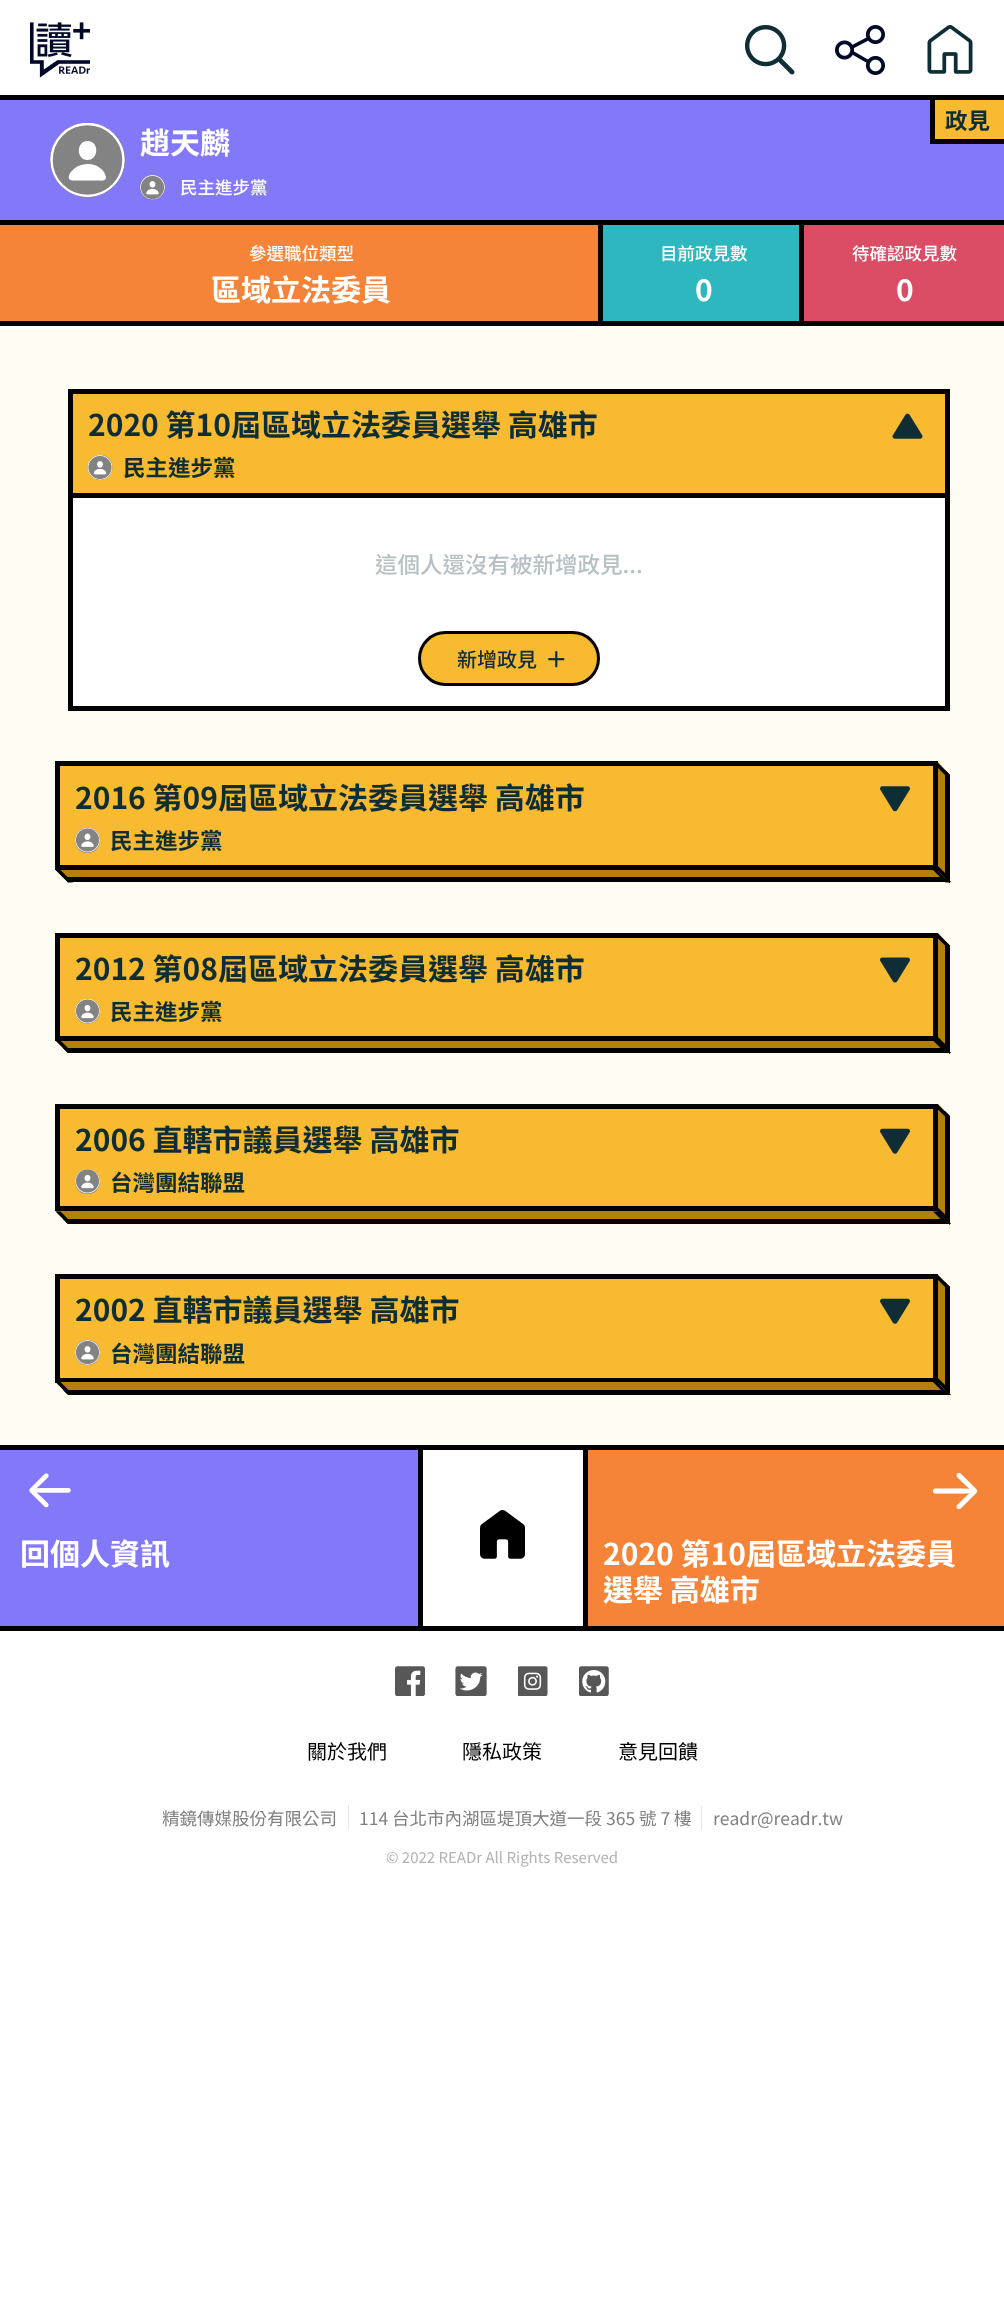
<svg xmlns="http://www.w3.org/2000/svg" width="1004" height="2304">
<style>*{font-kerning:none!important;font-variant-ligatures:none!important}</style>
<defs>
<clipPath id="clip1"><rect x="50" y="123" width="75" height="75"/></clipPath>
<clipPath id="clip2"><path d="M87.5 122c20.5 0 37.5 16.5 37.5 37.5c0 20.5-17 37.5-37.5 37.5c-20.5 0-37.5-17-37.5-37.5c0-21 17-37.5 37.5-37.5z"/></clipPath>
</defs>
<rect width="100%" height="100%" fill="#fff"/>
<rect y="95" width="1004" height="5" fill="#000"/>
<image x="30" y="22" width="60" height="56" href="media/1.png"/>
<image x="745" y="25" width="50" height="50" href="media/2.png"/>
<image x="835" y="25" width="50" height="50" href="media/3.png"/>
<image x="927" y="25" width="46" height="49" href="media/4.png"/>
<rect y="326" width="1004" height="1119" fill="#fffcf3"/>
<rect y="100" width="1004" height="120" fill="#8379f8"/>
<rect y="220" width="1004" height="5" fill="#000"/>
<rect x="935" y="100" width="69" height="39" fill="#f7ba31"/>
<rect x="930" y="100" width="5" height="44" fill="#000"/>
<rect x="930" y="139" width="74" height="5" fill="#000"/>
<text x="945" y="129" style="font-family:Noto Sans TC;font-size:22.5px;font-weight:bold;fill:#0f2d35">政見</text>
<path d="M88 123c20 0 37 16 37 37c0 20-17 37-37 37c-21 0-38-17-38-37c0-21 17-37 38-37z" fill="#838383"/>
<g clip-path="url(#clip1)">
<g clip-path="url(#clip2)">
<circle cx="87.5" cy="160" r="36" fill="none" stroke="#fff" stroke-width="2.5"/>
</g>
</g>
<path d="M73 180.5h24c2 0 6 .5 7.5-.5c2-1 1.5-3 1-4.5c-1-4.5-5-7.5-8.5-9.5c-20.5-9-36 14.5-24 14.5zm14.5-20.5c11.5 0 12-19 0-19c-11.5 0-11.5 19 0 19z" fill="#fff"/>
<text x="140" y="154" style="font-family:Noto Sans TC;font-size:30px;font-weight:bold;fill:#fff">趙天麟</text>
<path d="M152.5 175c7 0 12.5 5.5 12.5 12c0 7-5.5 12.5-12.5 12.5c-7 0-12.5-5.5-12.5-12.5c0-6.5 5.5-12 12.5-12z" fill="#838383"/>
<image x="140" y="175" width="25" height="25" href="media/5.png"/>
<text x="180" y="194" style="font-family:Noto Sans TC;font-size:17.5px;font-weight:500;fill:#fff">民主進步黨</text>
<rect y="225" width="598" height="96" fill="#f58439"/>
<rect x="598" y="225" width="5" height="101" fill="#000"/>
<rect y="321" width="603" height="5" fill="#000"/>
<text x="249" y="260" style="font-family:Noto Sans TC;font-size:17.5px;font-weight:500;fill:#fff">參選職位類型</text>
<text x="211" y="301" style="font-family:Noto Sans TC;font-size:30px;font-weight:bold;fill:#fff">區域立法委員</text>
<rect x="603" y="225" width="196" height="96" fill="#2fb7bf"/>
<rect x="799" y="225" width="5" height="101" fill="#000"/>
<rect x="603" y="321" width="401" height="5" fill="#000"/>
<text x="660" y="260" style="font-family:Noto Sans TC;font-size:17.5px;font-weight:500;fill:#fff">目前政見數</text>
<text x="695" y="301" style="font-family:Noto Sans TC;font-size:30px;font-weight:bold;fill:#fff">0</text>
<rect x="804" y="225" width="200" height="96" fill="#db4c65"/>
<text x="852" y="260" style="font-family:Noto Sans TC;font-size:17.5px;font-weight:500;fill:#fff">待確認政見數</text>
<text x="896" y="301" style="font-family:Noto Sans TC;font-size:30px;font-weight:bold;fill:#fff">0</text>
<rect x="73" y="394" width="872" height="99" fill="#f7ba31"/>
<rect x="945" y="389" width="5" height="322" fill="#000"/>
<rect x="68" y="389" width="5" height="322" fill="#000"/>
<rect x="68" y="493" width="882" height="5" fill="#000"/>
<rect x="68" y="389" width="882" height="5" fill="#000"/>
<text x="88" y="436" style="font-family:Noto Sans TC;font-size:30px;font-weight:bold;fill:#0f2d35">2020 第10屆區域立法委員選舉 高雄市</text>
<path d="M100.5 455c15 0 17 23.5-.5 25c-1.5 0-4-.5-5.5-1.5c-11-6-7-23.5 6-23.5z" fill="#838383"/>
<image x="88" y="455" width="25" height="25" href="media/6.png"/>
<text x="123" y="476" style="font-family:Noto Sans TC;font-size:22.5px;font-weight:bold;fill:#0f2d35">民主進步黨</text>
<image x="892" y="413" width="31" height="26" href="media/7.png"/>
<rect x="73" y="498" width="872" height="208" fill="#fff"/>
<rect x="68" y="706" width="882" height="5" fill="#000"/>
<text x="375" y="573" style="font-family:Noto Sans TC;font-size:22.5px;font-weight:500;fill:#b7c0c2">這個人還沒有被新增政見...</text>
<rect x="419.5" y="632.5" width="179" height="52" rx="26" fill="#f7ba31" stroke="#000" stroke-width="3"/>
<text x="457" y="667" style="font-family:Noto Sans TC;font-size:20px;font-weight:500;fill:#0f2d35">新增政見</text>
<image x="548" y="651" width="17" height="17" href="media/8.png"/>
<rect x="60" y="766" width="873" height="99" fill="#f7ba31"/>
<rect x="933" y="761" width="5" height="109" fill="#000"/>
<rect x="55" y="761" width="5" height="109" fill="#000"/>
<rect x="55" y="865" width="883" height="5" fill="#000"/>
<rect x="55" y="761" width="883" height="5" fill="#000"/>
<text x="75" y="809" style="font-family:Noto Sans TC;font-size:30px;font-weight:bold;fill:#0f2d35">2016 第09屆區域立法委員選舉 高雄市</text>
<path d="M87.5 828c16.5 0 16.5 25 0 25c-16.5 0-16.5-25 0-25z" fill="#838383"/>
<image x="75" y="828" width="25" height="25" href="media/9.png"/>
<text x="110" y="849" style="font-family:Noto Sans TC;font-size:22.5px;font-weight:bold;fill:#0f2d35">民主進步黨</text>
<image x="880" y="786" width="30" height="26" href="media/10.png"/>
<path d="M56 870h882l13 12h-883z" fill="#b3800d"/>
<path d="M933 870h5l12.5 12.5h-5z" fill="#000"/>
<path d="M55.5 870h5l12.5 12.5h-5z" fill="#000"/>
<path d="M63 877h883l5 5h-883z" fill="#000"/>
<path d="M938 762l12 13v108l-12-12z" fill="#b3800d"/>
<path d="M945 770l5 5v108l-5-5z" fill="#000"/>
<path d="M937.5 762.5l12.5 12.5v5l-12.5-12.5z" fill="#000"/>
<path d="M937.5 865.5l12.5 12.5v5l-12.5-12.5z" fill="#000"/>
<rect x="60" y="938" width="873" height="98" fill="#f7ba31"/>
<rect x="933" y="933" width="5" height="108" fill="#000"/>
<rect x="55" y="933" width="5" height="108" fill="#000"/>
<rect x="55" y="1036" width="883" height="5" fill="#000"/>
<rect x="55" y="933" width="883" height="5" fill="#000"/>
<text x="75" y="980" style="font-family:Noto Sans TC;font-size:30px;font-weight:bold;fill:#0f2d35">2012 第08屆區域立法委員選舉 高雄市</text>
<path d="M87.5 999c16.5 0 16.5 24.5 0 24.5c-16.5 0-16.5-24.5 0-24.5z" fill="#838383"/>
<image x="75" y="999" width="25" height="25" href="media/11.png"/>
<text x="110" y="1020" style="font-family:Noto Sans TC;font-size:22.5px;font-weight:bold;fill:#0f2d35">民主進步黨</text>
<image x="880" y="957" width="30" height="26" href="media/12.png"/>
<path d="M56 1041h882l13 12h-883z" fill="#b3800d"/>
<path d="M933 1040.5h5l12.5 12.5h-5z" fill="#000"/>
<path d="M55.5 1040.5h5l12.5 12.5h-5z" fill="#000"/>
<path d="M63 1048h883l5 5h-883z" fill="#000"/>
<path d="M938 933l12 13v108l-12-13z" fill="#b3800d"/>
<path d="M945 941l5 5v108l-5-5z" fill="#000"/>
<path d="M937.5 933l12.5 12.5v5l-12.5-12.5z" fill="#000"/>
<path d="M937.5 1036.5l12.5 12.5v5l-12.5-12.5z" fill="#000"/>
<rect x="60" y="1109" width="873" height="97" fill="#f7ba31"/>
<rect x="933" y="1104" width="5" height="107" fill="#000"/>
<rect x="55" y="1104" width="5" height="107" fill="#000"/>
<rect x="55" y="1206" width="883" height="5" fill="#000"/>
<rect x="55" y="1104" width="883" height="5" fill="#000"/>
<text x="75" y="1151" style="font-family:Noto Sans TC;font-size:30px;font-weight:bold;fill:#0f2d35">2006 直轄市議員選舉 高雄市</text>
<path d="M87.5 1169.5c16.5 0 16.5 24.5 0 24.5c-16.5 0-16.5-24.5 0-24.5z" fill="#838383"/>
<image x="75" y="1169" width="25" height="25" href="media/13.png"/>
<text x="110" y="1191" style="font-family:Noto Sans TC;font-size:22.5px;font-weight:bold;fill:#0f2d35">台灣團結聯盟</text>
<image x="880" y="1128" width="30" height="26" href="media/14.png"/>
<path d="M56 1211h882l13 13h-883z" fill="#b3800d"/>
<path d="M933 1211.5h5l12.5 12.5h-5z" fill="#000"/>
<path d="M55.5 1211.5h5l12.5 12.5h-5z" fill="#000"/>
<path d="M63 1219h883l5 5h-883z" fill="#000"/>
<path d="M938 1104l12 12v109l-12-13z" fill="#b3800d"/>
<path d="M945 1111l5 5v109l-5-5z" fill="#000"/>
<path d="M937.5 1104l12.5 12.5v5l-12.5-12.5z" fill="#000"/>
<path d="M937.5 1207l12.5 12.5v5l-12.5-12.5z" fill="#000"/>
<rect x="60" y="1279" width="873" height="99" fill="#f7ba31"/>
<rect x="933" y="1274" width="5" height="109" fill="#000"/>
<rect x="55" y="1274" width="5" height="109" fill="#000"/>
<rect x="55" y="1378" width="883" height="5" fill="#000"/>
<rect x="55" y="1274" width="883" height="5" fill="#000"/>
<text x="75" y="1321" style="font-family:Noto Sans TC;font-size:30px;font-weight:bold;fill:#0f2d35">2002 直轄市議員選舉 高雄市</text>
<path d="M87.5 1340c-16.5 0-16.5 25 0 25c16.5 0 16.5-25 0-25z" fill="#838383"/>
<image x="75" y="1340" width="25" height="25" href="media/15.png"/>
<text x="110" y="1362" style="font-family:Noto Sans TC;font-size:22.5px;font-weight:bold;fill:#0f2d35">台灣團結聯盟</text>
<image x="880" y="1298" width="30" height="26" href="media/14.png"/>
<path d="M56 1382h882l13 13h-883z" fill="#b3800d"/>
<path d="M933 1382h5l12.5 12.5h-5z" fill="#000"/>
<path d="M55.5 1382h5l12.5 12.5h-5z" fill="#000"/>
<path d="M63 1390h883l5 5h-883z" fill="#000"/>
<path d="M938 1275l12 12v108l-12-12z" fill="#b3800d"/>
<path d="M945 1282l5 5v108l-5-5z" fill="#000"/>
<path d="M937.5 1274.5l12.5 12.5v5l-12.5-12.5z" fill="#000"/>
<path d="M937.5 1377.5l12.5 12.5v5l-12.5-12.5z" fill="#000"/>
<rect y="1450" width="418" height="176" fill="#8379f8"/>
<rect x="418" y="1445" width="5" height="181" fill="#000"/>
<rect y="1445" width="583" height="5" fill="#000"/>
<image x="29" y="1473" width="42" height="35" href="media/16.png"/>
<text x="20" y="1565" style="font-family:Noto Sans TC;font-size:30px;font-weight:bold;fill:#fff">回個人資訊</text>
<image x="480" y="1510" width="45" height="49" href="media/17.png"/>
<rect x="588" y="1450" width="416" height="176" fill="#f58439"/>
<rect x="583" y="1445" width="5" height="181" fill="#000"/>
<rect x="583" y="1445" width="421" height="5" fill="#000"/>
<image x="932" y="1472" width="46" height="38" href="media/18.png"/>
<text x="603" y="1565" style="font-family:Noto Sans TC;font-size:30px;font-weight:bold;fill:#fff">2020 第10屆區域立法委員</text>
<text x="603" y="1601" style="font-family:Noto Sans TC;font-size:30px;font-weight:bold;fill:#fff">選舉 高雄市</text>
<rect y="1626" width="1004" height="5" fill="#000"/>
<image x="395" y="1666" width="30" height="30" href="media/19.png"/>
<image x="455" y="1666" width="32" height="30" href="media/20.png"/>
<image x="518" y="1666" width="30" height="30" href="media/21.png"/>
<image x="579" y="1666" width="30" height="30" href="media/22.png"/>
<text x="307" y="1759" style="font-family:Noto Sans TC;font-size:20px;fill:#000">關於我們</text>
<text x="462" y="1759" style="font-family:Noto Sans TC;font-size:20px;fill:#000">隱私政策</text>
<text x="618" y="1759" style="font-family:Noto Sans TC;font-size:20px;fill:#000">意見回饋</text>
<text x="162" y="1825" style="font-family:Noto Sans TC;font-size:17.5px;fill:#808080">精鏡傳媒股份有限公司</text>
<rect x="348" y="1805" width="1" height="25" fill="#e6e6e6"/>
<text x="359" y="1825" style="font-family:Noto Sans TC;font-size:17.5px;fill:#808080">114 台北市內湖區堤頂大道一段 365 號 7 樓</text>
<rect x="701" y="1805" width="1" height="25" fill="#e6e6e6"/>
<text x="713" y="1825" style="font-family:Noto Sans TC;font-size:17.5px;fill:#808080">readr@readr.tw</text>
<text x="386" y="1863" style="font-family:Noto Sans TC;font-size:15px;fill:#b3b3b3">© 2022 READr All Rights Reserved</text>
</svg>
